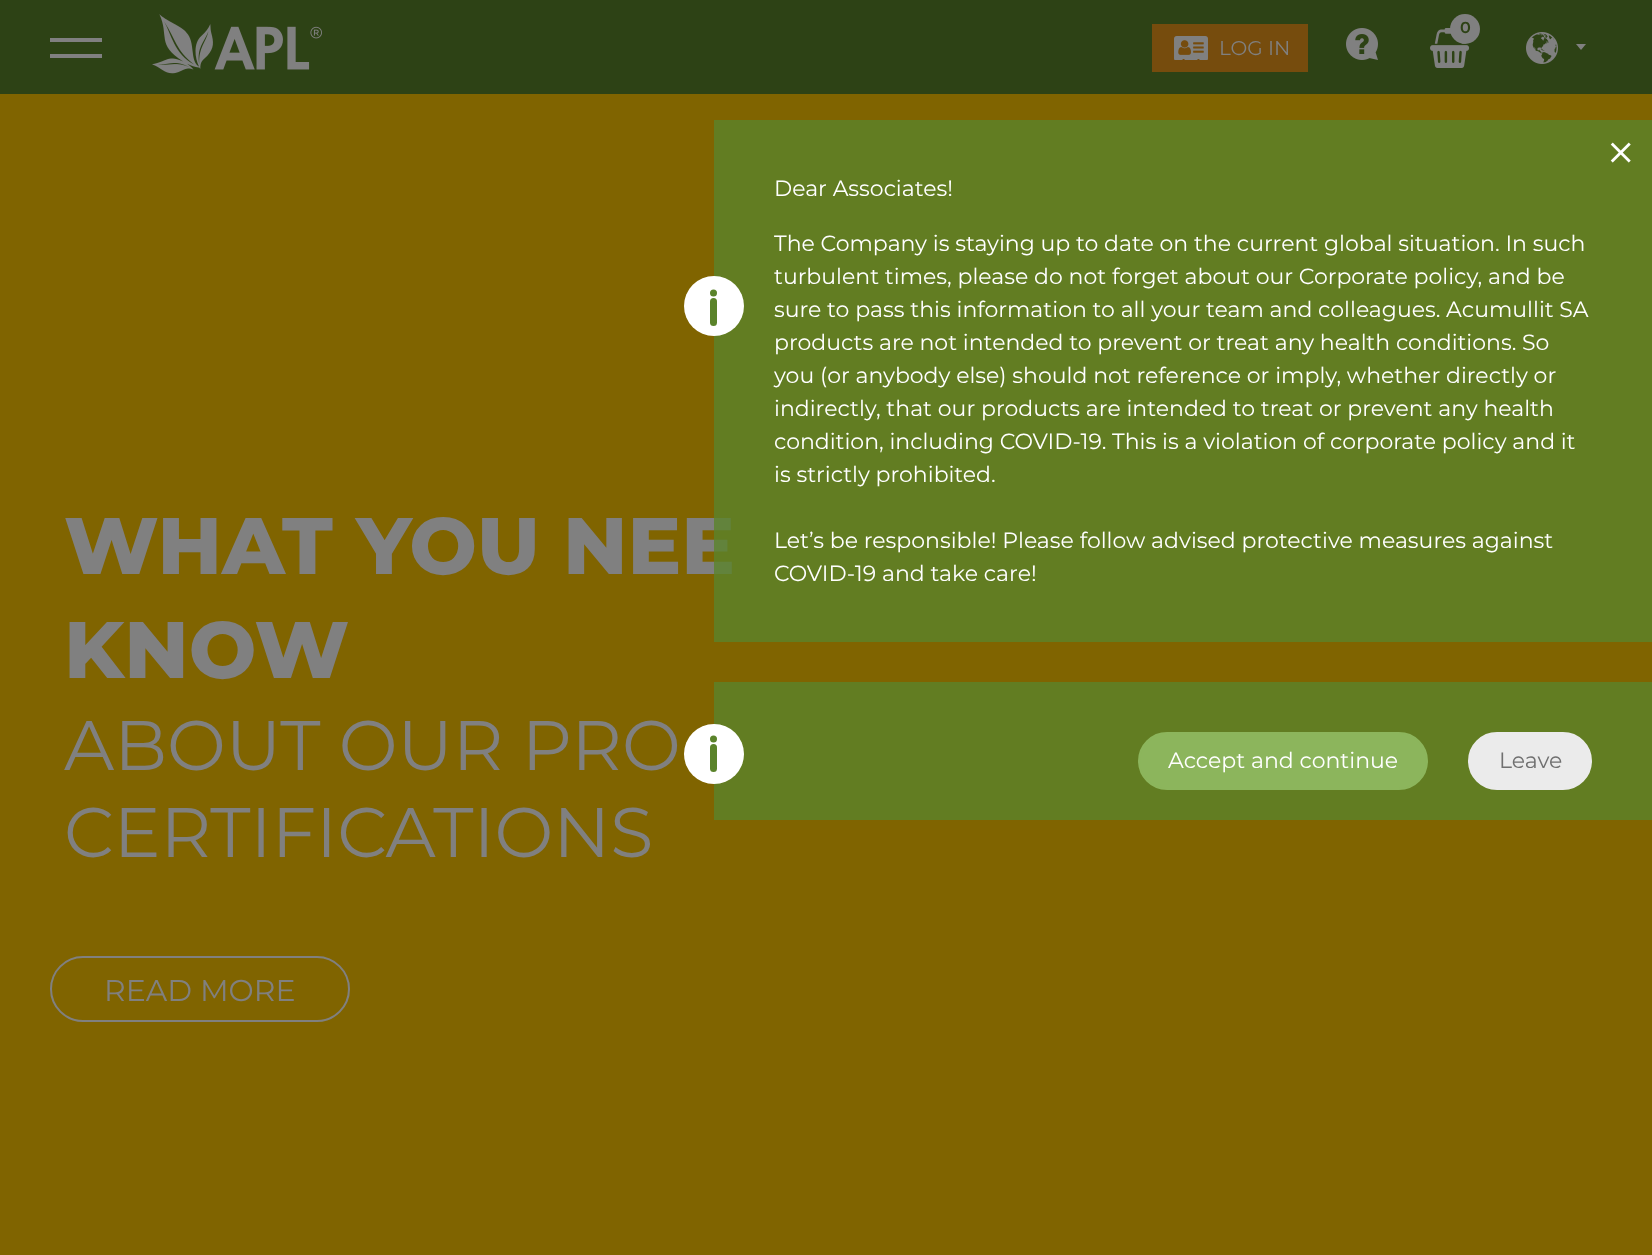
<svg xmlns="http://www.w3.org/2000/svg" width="1652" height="1255">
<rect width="100%" height="100%" fill="#806400"/>
<rect width="1652" height="94" fill="#2d4215"/>
<rect x="50" y="38" width="52" height="4" fill="#808080"/>
<rect x="50" y="54" width="52" height="4" fill="#808080"/>
<image x="152" y="14" width="170" height="60" href="media/1.png"/>
<rect x="1152" y="24" width="156" height="48" fill="#764c0d"/>
<image x="1174" y="36" width="34" height="24" href="media/2.png"/>
<text x="1219" y="55" style="font-family:Montserrat;font-size:20px;fill:#808080">LOG IN</text>
<image x="1346" y="28" width="32" height="32" href="media/3.png"/>
<image x="1430" y="28" width="40" height="40" href="media/4.png"/>
<circle cx="1465" cy="29" r="15" fill="#808080"/>
<text x="1460" y="33" style="font-family:Montserrat;font-size:16px;font-weight:600;fill:#2d4215">0</text>
<image x="1526" y="32" width="32" height="32" href="media/5.png"/>
<path d="M1581 50l-5-6h10z" fill="#808080"/>
<text x="64" y="574" style="font-family:Montserrat;font-size:80px;font-weight:800;fill:#808080">WHAT YOU NEE</text>
<text x="64" y="678" style="font-family:Montserrat;font-size:80px;font-weight:800;fill:#808080">KNOW</text>
<text x="64" y="770" style="font-family:Montserrat;font-size:70px;fill:#808080">ABOUT OUR PRO</text>
<text x="64" y="857" style="font-family:Montserrat;font-size:70px;fill:#808080">CERTIFICATIONS</text>
<rect x="51" y="957" width="298" height="64" rx="32" fill="none" stroke="#808080" stroke-width="2"/>
<text x="104" y="1001" style="font-family:Montserrat;font-size:30px;fill:#808080">READ MORE</text>
<rect x="714" y="120" width="938" height="522" fill="#5a832acc"/>
<image x="1610" y="142" width="21" height="21" href="media/6.png"/>
<text x="774" y="196" style="font-family:Montserrat;font-size:22px;fill:#fff">Dear Associates!</text>
<circle cx="714" cy="306" r="30" fill="#fff"/>
<rect x="710" y="298" width="7" height="28" rx="3.5" fill="#5a832a"/>
<circle cx="713.5" cy="293" r="3.5" fill="#5a832a"/>
<text x="774" y="251" style="font-family:Montserrat;font-size:22px;fill:#fff">The Company is staying up to date on the current global situation. In such</text>
<text x="774" y="284" style="font-family:Montserrat;font-size:22px;fill:#fff">turbulent times, please do not forget about our Corporate policy, and be</text>
<text x="774" y="317" style="font-family:Montserrat;font-size:22px;fill:#fff">sure to pass this information to all your team and colleagues. Acumullit SA</text>
<text x="774" y="350" style="font-family:Montserrat;font-size:22px;fill:#fff">products are not intended to prevent or treat any health conditions. So</text>
<text x="774" y="383" style="font-family:Montserrat;font-size:22px;fill:#fff">you (or anybody else) should not reference or imply, whether directly or</text>
<text x="774" y="416" style="font-family:Montserrat;font-size:22px;fill:#fff">indirectly, that our products are intended to treat or prevent any health</text>
<text x="774" y="449" style="font-family:Montserrat;font-size:22px;fill:#fff">condition, including COVID-19. This is a violation of corporate policy and it</text>
<text x="774" y="482" style="font-family:Montserrat;font-size:22px;fill:#fff">is strictly prohibited.</text>
<text x="774" y="548" style="font-family:Montserrat;font-size:22px;fill:#fff">Let’s be responsible! Please follow advised protective measures against</text>
<text x="774" y="581" style="font-family:Montserrat;font-size:22px;fill:#fff">COVID-19 and take care!</text>
<rect x="714" y="682" width="938" height="138" fill="#5a832acc"/>
<circle cx="714" cy="754" r="30" fill="#fff"/>
<rect x="710" y="744" width="7" height="28" rx="3.5" fill="#5a832a"/>
<circle cx="713.5" cy="739" r="3.5" fill="#5a832a"/>
<rect x="1139" y="733" width="288" height="56" rx="28" fill="#8cb55c" stroke="#8cb55c" stroke-width="2"/>
<text x="1168" y="768" style="font-family:Montserrat;font-size:22px;fill:#fff">Accept and continue</text>
<rect x="1469" y="733" width="122" height="56" rx="28" fill="#ebebeb" stroke="#ebebeb" stroke-width="2"/>
<text x="1499" y="768" style="font-family:Montserrat;font-size:22px;fill:#707070">Leave</text>
</svg>
